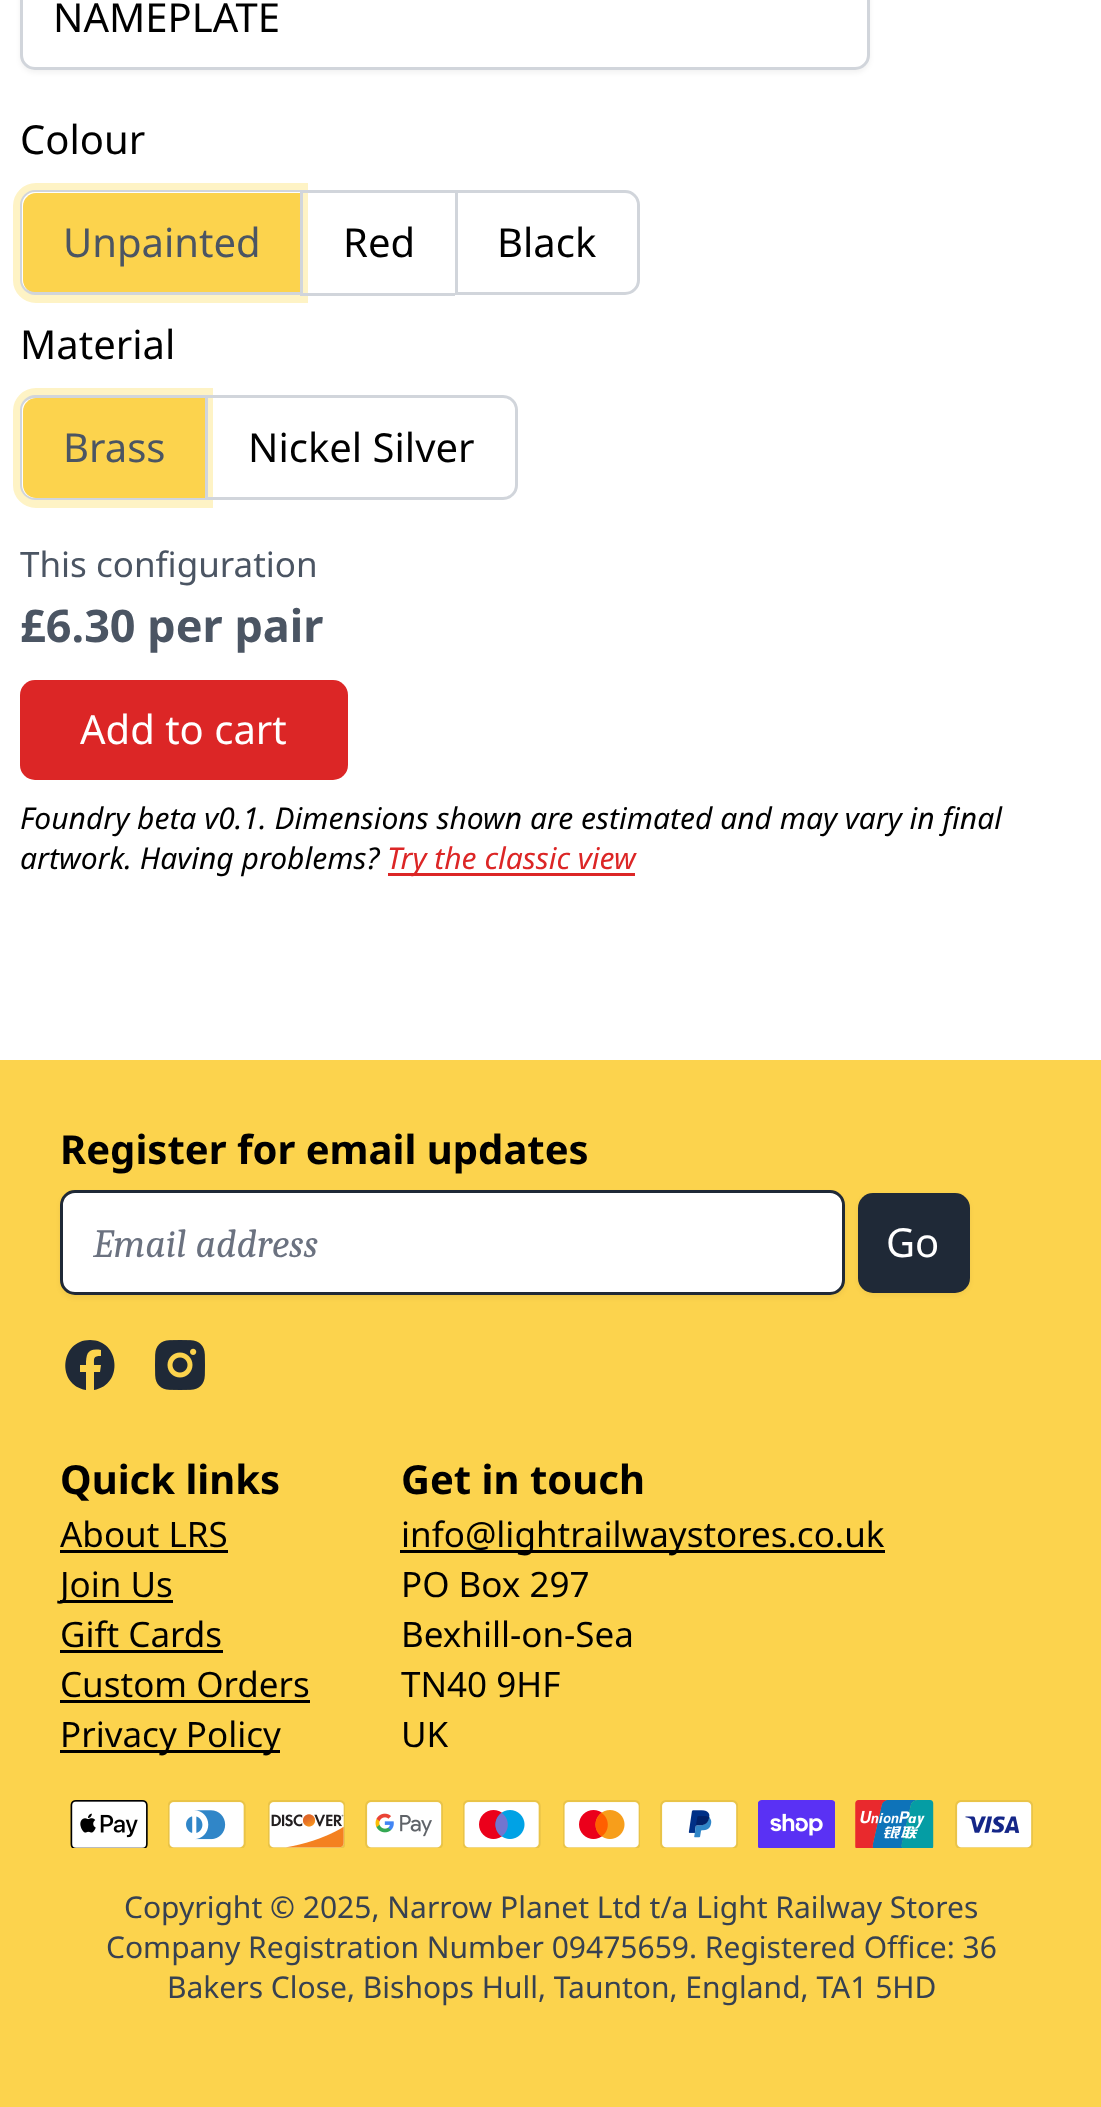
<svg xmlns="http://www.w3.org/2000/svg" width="1101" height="2107">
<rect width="100%" height="100%" fill="#fff"/>
<rect x="20" y="-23" width="850" height="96" rx="15" fill="#0000000d" filter="blur(2.5px)"/>
<rect x="21.5" y="-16.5" width="847" height="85" rx="13.5" fill="#fff" stroke="#d1d5db" stroke-width="3"/>
<text x="53" y="32" style="font-family:Noto Sans;font-size:40px;fill:#000">NAMEPLATE</text>
<text x="20" y="154" style="font-family:Noto Sans;font-size:40px;fill:#000">Colour</text>
<path d="M36 187h268v112h-268c-10.5 0-19-8.5-19-19v-74c0-10.5 8.5-19 19-19z" fill="none" stroke="#fef3c5" stroke-width="8"/>
<path d="M36 193h264v100h-264c-7 0-13-6-13-13v-74c0-7 6-13 13-13z" fill="#fcd34d"/>
<path d="M35 190h265v105h-265c-8 0-15-7-15-15v-75c0-8 7-15 15-15zm0 2h265v100h-265c-7 0-13-5-13-12v-75c0-7 6-13 13-13z" fill="#d1d5db" fill-rule="evenodd"/>
<text x="63" y="257" style="font-family:Noto Sans;font-size:40px;fill:#4b5563">Unpainted</text>
<rect x="300" y="190" width="155" height="3" fill="#d1d5db"/>
<rect x="300" y="293" width="155" height="3" fill="#d1d5db"/>
<rect x="300" y="190" width="3" height="105" fill="#d1d5db"/>
<text x="343" y="257" style="font-family:Noto Sans;font-size:40px;fill:#000">Red</text>
<path d="M456.5 191.5h168.5c7.5 0 13.5 6 13.5 13.5v75c0 7.5-6 13.5-13.5 13.5h-168.5z" fill="none" stroke="#d1d5db" stroke-width="3"/>
<text x="497" y="257" style="font-family:Noto Sans;font-size:40px;fill:#000">Black</text>
<text x="20" y="359" style="font-family:Noto Sans;font-size:40px;fill:#000">Material</text>
<path d="M36 392h173v112h-173c-10.5 0-19-8.5-19-19v-74c0-10.5 8.5-19 19-19z" fill="none" stroke="#fef3c5" stroke-width="8"/>
<path d="M36 398h169v100h-169c-7 0-13-6-13-13v-74c0-7 6-13 13-13z" fill="#fcd34d"/>
<path d="M35 395h170v105h-170c-8 0-15-7-15-15v-75c0-8 7-15 15-15zm0 3h170v100h-170c-7 0-13-6-13-13v-75c0-7 6-12 13-12z" fill="#d1d5db" fill-rule="evenodd"/>
<text x="63" y="462" style="font-family:Noto Sans;font-size:40px;fill:#4b5563">Brass</text>
<path d="M206.5 396.5h296.5c7.5 0 13.5 6 13.5 13.5v75c0 7.5-6 13.5-13.5 13.5h-296.5z" fill="none" stroke="#d1d5db" stroke-width="3"/>
<text x="248" y="462" style="font-family:Noto Sans;font-size:40px;fill:#000">Nickel Silver</text>
<text x="20" y="577" style="font-family:Noto Sans;font-size:35px;fill:#4b5563">This configuration</text>
<text x="20" y="642" style="font-family:Noto Sans;font-size:45px;font-weight:bold;fill:#4b5563">£6.30 per pair</text>
<rect x="20" y="680" width="328" height="100" rx="15" fill="#dc2626"/>
<text x="80" y="744" style="font-family:Noto Sans;font-size:40px;fill:#fff">Add to cart</text>
<text x="20" y="829" style="font-family:Noto Sans;font-size:30px;font-style:italic;fill:#000">Foundry beta v0.1. Dimensions shown are estimated and may vary in final</text>
<text x="20" y="869" style="font-family:Noto Sans;font-size:30px;font-style:italic;fill:#000">artwork. Having problems?</text>
<rect x="388" y="873" width="247" height="3" fill="#dc2626"/>
<text x="387" y="869" style="font-family:Noto Sans;font-size:30px;font-style:italic;fill:#dc2626">Try the classic view</text>
<rect y="1060" width="1101" height="1047" fill="#fcd34d"/>
<text x="60" y="1164" style="font-family:Noto Sans;font-size:40px;font-weight:bold;fill:#000">Register for email updates</text>
<rect x="60" y="1193" width="785" height="105" rx="15" fill="#0000000d" filter="blur(2.5px)"/>
<rect x="61.5" y="1191.5" width="782" height="102" rx="13.5" fill="#fff" stroke="#1f2937" stroke-width="3"/>
<text x="93" y="1257" style="font-family:Caladea;font-size:40px;font-style:italic;fill:#6b7280">Email address</text>
<rect x="858" y="1195" width="112" height="100" rx="15" fill="#0000000d" filter="blur(2.5px)"/>
<rect x="858" y="1193" width="112" height="100" rx="15" fill="#1f2937"/>
<text x="886" y="1257" style="font-family:Noto Sans;font-size:40px;fill:#fff">Go</text>
<path d="M90 1340c-30 0-34 45-4 50v-18h-6v-7h6c0-12 2-17 15-15v6c-8 0-7 2-7 9h7l-1 7h-6v18c30-5 26-50-4-50z" fill="#1f2937"/>
<image x="155" y="1340" width="50" height="50" href="media/1.png"/>
<text x="60" y="1494" style="font-family:Noto Sans;font-size:40px;font-weight:bold;fill:#000">Quick links</text>
<text x="60" y="1547" style="font-family:Noto Sans;font-size:35px;fill:#000">About LRS</text>
<rect x="60" y="1550" width="168" height="3" fill="#000"/>
<rect x="60" y="1600" width="113" height="3" fill="#000"/>
<text x="60" y="1597" style="font-family:Noto Sans;font-size:35px;fill:#000">Join Us</text>
<text x="60" y="1647" style="font-family:Noto Sans;font-size:35px;fill:#000">Gift Cards</text>
<rect x="60" y="1650" width="163" height="3" fill="#000"/>
<text x="60" y="1697" style="font-family:Noto Sans;font-size:35px;fill:#000">Custom Orders</text>
<rect x="60" y="1700" width="250" height="3" fill="#000"/>
<rect x="60" y="1750" width="220" height="3" fill="#000"/>
<text x="60" y="1747" style="font-family:Noto Sans;font-size:35px;fill:#000">Privacy Policy</text>
<text x="401" y="1494" style="font-family:Noto Sans;font-size:40px;font-weight:bold;fill:#000">Get in touch</text>
<rect x="400" y="1550" width="485" height="3" fill="#000"/>
<text x="401" y="1547" style="font-family:Noto Sans;font-size:35px;fill:#000">info@lightrailwaystores.co.uk</text>
<text x="401" y="1597" style="font-family:Noto Sans;font-size:35px;fill:#000">PO Box 297</text>
<text x="401" y="1647" style="font-family:Noto Sans;font-size:35px;fill:#000">Bexhill-on-Sea</text>
<text x="401" y="1697" style="font-family:Noto Sans;font-size:35px;fill:#000">TN40 9HF</text>
<text x="401" y="1747" style="font-family:Noto Sans;font-size:35px;fill:#000">UK</text>
<image x="70" y="1800" width="78" height="48" href="media/2.png"/>
<image x="168" y="1800" width="78" height="48" href="media/3.png"/>
<image x="268" y="1800" width="77" height="48" href="media/4.png"/>
<image x="365" y="1800" width="78" height="48" href="media/5.png"/>
<image x="463" y="1800" width="78" height="48" href="media/6.png"/>
<image x="563" y="1800" width="77" height="48" href="media/7.png"/>
<image x="660" y="1800" width="78" height="48" href="media/8.png"/>
<image x="758" y="1800" width="77" height="48" href="media/9.png"/>
<image x="855" y="1800" width="79" height="48" href="media/10.png"/>
<image x="955" y="1800" width="78" height="48" href="media/11.png"/>
<text x="124" y="1918" style="font-family:Noto Sans;font-size:30px;fill:#374151">Copyright © 2025, Narrow Planet Ltd t/a Light Railway Stores</text>
<text x="106" y="1958" style="font-family:Noto Sans;font-size:30px;fill:#374151">Company Registration Number 09475659. Registered Office: 36</text>
<text x="167" y="1998" style="font-family:Noto Sans;font-size:30px;fill:#374151">Bakers Close, Bishops Hull, Taunton, England, TA1 5HD</text>
</svg>
